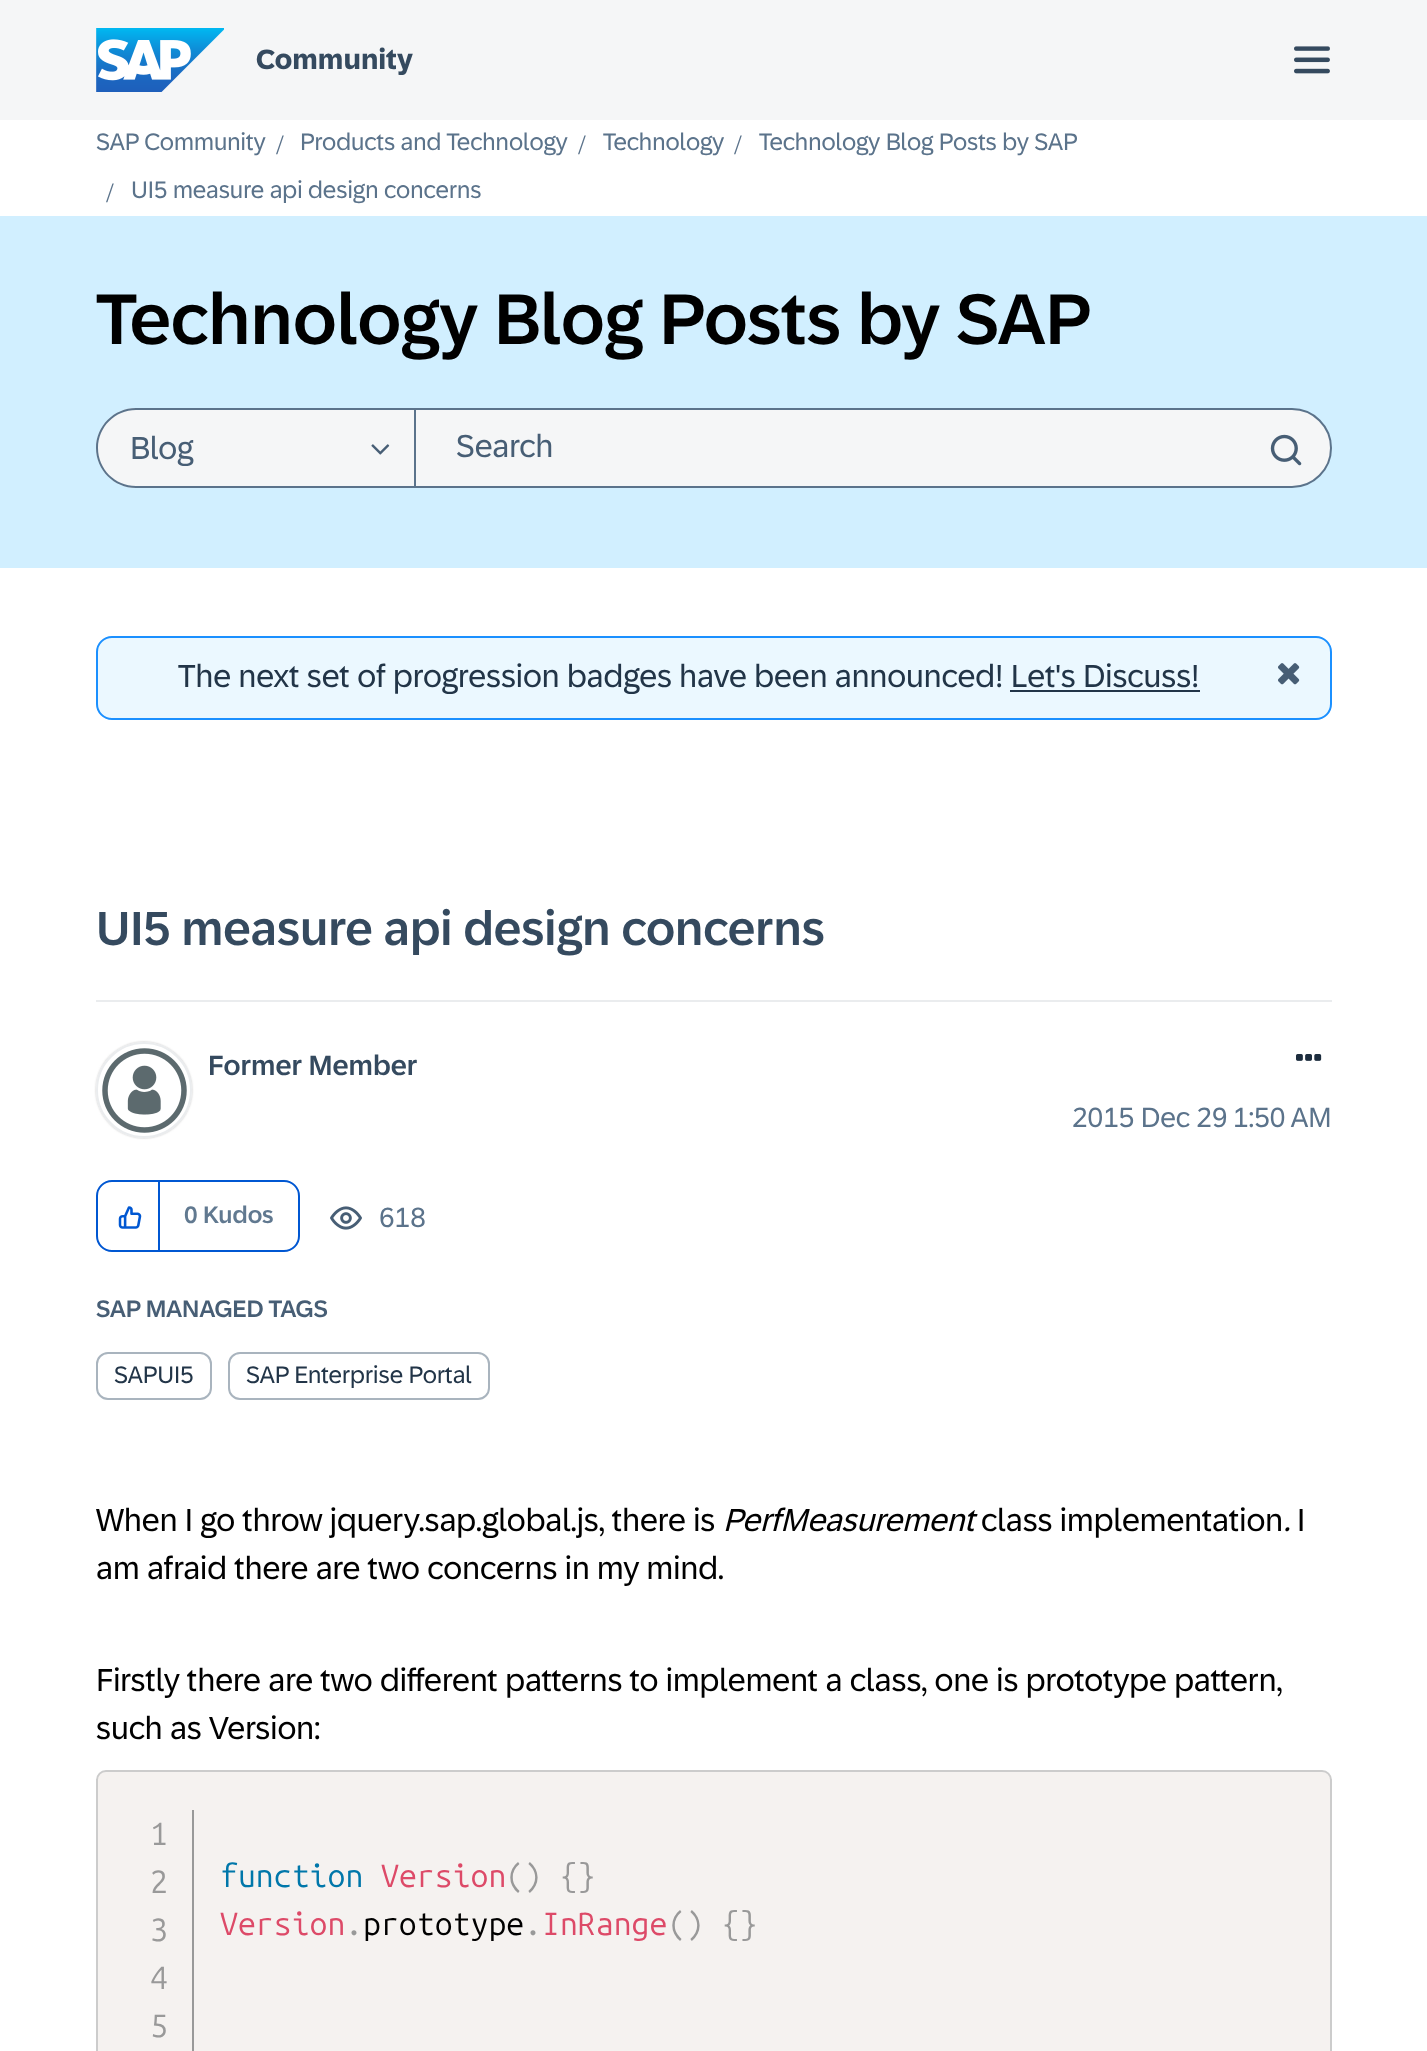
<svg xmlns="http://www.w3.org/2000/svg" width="1427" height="2051">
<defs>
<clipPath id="clip1"><path d="M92 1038h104v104h-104zm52 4c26.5 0 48 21.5 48 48c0 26.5-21.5 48-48 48c-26.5 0-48-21.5-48-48c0-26.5 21.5-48 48-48z" clip-rule="evenodd"/></clipPath>
</defs>
<rect width="100%" height="100%" fill="#fff"/>
<rect width="1427" height="120" fill="#f5f6f7"/>
<image x="96" y="28" width="128" height="64" href="media/1.png"/>
<text x="256" y="69" style="font-family:'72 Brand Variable';font-size:28px;font-weight:bold;fill:#354a5f">Community</text>
<image x="1294" y="46" width="36" height="28" href="media/2.png"/>
<text x="96" y="150" style="font-family:'72 Brand Variable';font-size:24px;fill:#5b738b">SAP Community</text>
<text x="276" y="154" style="font-family:Liberation Serif;font-size:28px;fill:#5b738b">/</text>
<text x="300" y="150" style="font-family:'72 Brand Variable';font-size:24px;fill:#5b738b">Products and Technology</text>
<text x="578" y="154" style="font-family:Liberation Serif;font-size:28px;fill:#5b738b">/</text>
<text x="603" y="150" style="font-family:'72 Brand Variable';font-size:24px;fill:#5b738b">Technology</text>
<text x="734" y="154" style="font-family:Liberation Serif;font-size:28px;fill:#5b738b">/</text>
<text x="759" y="150" style="font-family:'72 Brand Variable';font-size:24px;fill:#5b738b">Technology Blog Posts by SAP</text>
<text x="106" y="202" style="font-family:Liberation Serif;font-size:28px;fill:#5b738b">/</text>
<text x="131" y="198" style="font-family:'72 Brand Variable';font-size:24px;fill:#5b738b">UI5 measure api design concerns</text>
<rect y="216" width="1427" height="352" fill="#d1efff"/>
<text x="96" y="344" style="font-family:'72 Brand Variable';font-size:72px;font-weight:500;fill:#000">Technology Blog Posts by SAP</text>
<path d="M136 408h278v80h-278c-22 0-40-18-40-40c0-22 18-40 40-40z" fill="#f5f6f7"/>
<path d="M136 408h278v80h-278c-22 0-40-18-40-40c0-22 18-40 40-40zm0 2h278v76h-278c-21 0-38-17-38-38c0-21 17-38 38-38z" fill="#5b738b" fill-rule="evenodd"/>
<text x="130" y="459" style="font-family:'72 Brand Variable';font-size:32px;fill:#475e75">Blog</text>
<image x="371" y="444" width="19" height="11" href="media/3.png"/>
<path d="M415 409h877c21.5 0 39 17.5 39 39c0 21.5-17.5 39-39 39h-877z" fill="#f5f6f7" stroke="#5b738b" stroke-width="2"/>
<text x="456" y="457" style="font-family:'72 Brand Variable';font-size:32px;fill:#475e75">Search</text>
<image x="1270" y="434" width="32" height="32" href="media/4.png"/>
<rect x="97" y="637" width="1234" height="82" rx="15" fill="#ebf8ff" stroke="#1b90ff" stroke-width="2"/>
<text x="178" y="687" style="font-family:'72 Brand Variable';font-size:32px;fill:#223548">The next set of progression badges have been announced! Let's Discuss!</text>
<rect x="1010" y="690" width="190" height="2" fill="#223548"/>
<image x="1278" y="663" width="22" height="22" href="media/5.png"/>
<rect x="96" y="1000" width="1236" height="2" fill="#eaecee"/>
<text x="96" y="945" style="font-family:'72 Brand Variable';font-size:48px;font-weight:500;fill:#354a5f">UI5 measure api design concerns</text>
<g clip-path="url(#clip1)">
<rect x="96" y="1042" width="96" height="96" rx="48" fill="#c4c4c4" filter="blur(1px)"/>
</g>
<circle cx="144" cy="1090" r="47" fill="none" stroke="#eaecee" stroke-width="2"/>
<image x="102" y="1048" width="85" height="85" href="media/6.png"/>
<text x="208" y="1075" style="font-family:'72 Brand Variable';font-size:28px;font-weight:500;fill:#354a5f">Former Member</text>
<image x="1296" y="1054" width="26" height="7" href="media/7.png"/>
<text x="1072" y="1127" style="font-family:'72 Brand Variable';font-size:28px;fill:#5b738b">2015 Dec 29</text>
<text x="1233" y="1127" style="font-family:'72 Brand Variable';font-size:28px;fill:#5b738b">1:50 AM</text>
<rect x="97" y="1181" width="202" height="70" rx="15" fill="none" stroke="#0057d2" stroke-width="2"/>
<rect x="158" y="1182" width="2" height="70" fill="#0057d2"/>
<image x="118" y="1206" width="24" height="23" href="media/8.png"/>
<text x="184" y="1223" style="font-family:'72 Brand Variable';font-size:24px;font-weight:500;fill:#617990">0 Kudos</text>
<image x="330" y="1206" width="32" height="24" href="media/9.png"/>
<text x="379" y="1227" style="font-family:'72 Brand Variable';font-size:28px;fill:#5b738b">618</text>
<text x="96" y="1317" style="font-family:'72 Brand Variable';font-size:24px;font-weight:500;fill:#475e75">SAP MANAGED TAGS</text>
<rect x="97" y="1353" width="114" height="46" rx="11" fill="none" stroke="#a9b4be" stroke-width="2"/>
<text x="114" y="1383" style="font-family:'72 Brand Variable';font-size:24px;fill:#223548">SAPUI5</text>
<rect x="229" y="1353" width="260" height="46" rx="11" fill="none" stroke="#a9b4be" stroke-width="2"/>
<text x="246" y="1383" style="font-family:'72 Brand Variable';font-size:24px;fill:#223548">SAP Enterprise Portal</text>
<text x="96" y="1531" style="font-family:'72 Brand Variable';font-size:32px;fill:#000">When I go throw jquery.sap.global.js, there is</text>
<text x="723" y="1531" style="font-family:'72 Brand Variable';font-size:32px;font-style:italic;fill:#000">PerfMeasurement</text>
<text x="981" y="1531" style="font-family:'72 Brand Variable';font-size:32px;fill:#000">class implementation</text>
<text x="1284" y="1531" style="font-family:'72 Brand Variable';font-size:32px;font-style:italic;fill:#000">.</text>
<text x="1297" y="1531" style="font-family:'72 Brand Variable';font-size:32px;fill:#000">I</text>
<text x="96" y="1579" style="font-family:'72 Brand Variable';font-size:32px;fill:#000">am afraid there are two concerns in my mind.</text>
<text x="96" y="1691" style="font-family:'72 Brand Variable';font-size:32px;fill:#000">Firstly there are two different patterns to implement a class, one is prototype pattern,</text>
<text x="96" y="1739" style="font-family:'72 Brand Variable';font-size:32px;fill:#000">such as Version:</text>
<rect x="97" y="1771" width="1234" height="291" rx="9" fill="#f5f2f0" stroke="#ccc" stroke-width="2"/>
<rect x="192" y="1810" width="2" height="241" fill="#999"/>
<text x="150" y="1845" style="font-family:Ubuntu Mono;font-size:32px;letter-spacing:-2px;fill:#999">1</text>
<text x="150" y="1893" style="font-family:Ubuntu Mono;font-size:32px;letter-spacing:-2px;fill:#999">2</text>
<text x="150" y="1941" style="font-family:Ubuntu Mono;font-size:32px;letter-spacing:-2px;fill:#999">3</text>
<text x="150" y="1989" style="font-family:Ubuntu Mono;font-size:32px;letter-spacing:-2px;fill:#999">4</text>
<text x="150" y="2037" style="font-family:Ubuntu Mono;font-size:32px;letter-spacing:-2px;fill:#999">5</text>
<text x="220" y="1887" style="font-family:Ubuntu Mono;font-size:32px;fill:#07a">function</text>
<text x="381" y="1887" style="font-family:Ubuntu Mono;font-size:32px;fill:#dd4a68">Version</text>
<text x="506" y="1887" style="font-family:Ubuntu Mono;font-size:32px;fill:#999">() {}</text>
<text x="220" y="1935" style="font-family:Ubuntu Mono;font-size:32px;fill:#dd4a68">Version</text>
<text x="345" y="1935" style="font-family:Ubuntu Mono;font-size:32px;fill:#999">.</text>
<text x="363" y="1935" style="font-family:Ubuntu Mono;font-size:32px;fill:#000">prototype</text>
<text x="524" y="1935" style="font-family:Ubuntu Mono;font-size:32px;fill:#999">.</text>
<text x="542" y="1935" style="font-family:Ubuntu Mono;font-size:32px;fill:#dd4a68">InRange</text>
<text x="668" y="1935" style="font-family:Ubuntu Mono;font-size:32px;fill:#999">() {}</text>
</svg>
